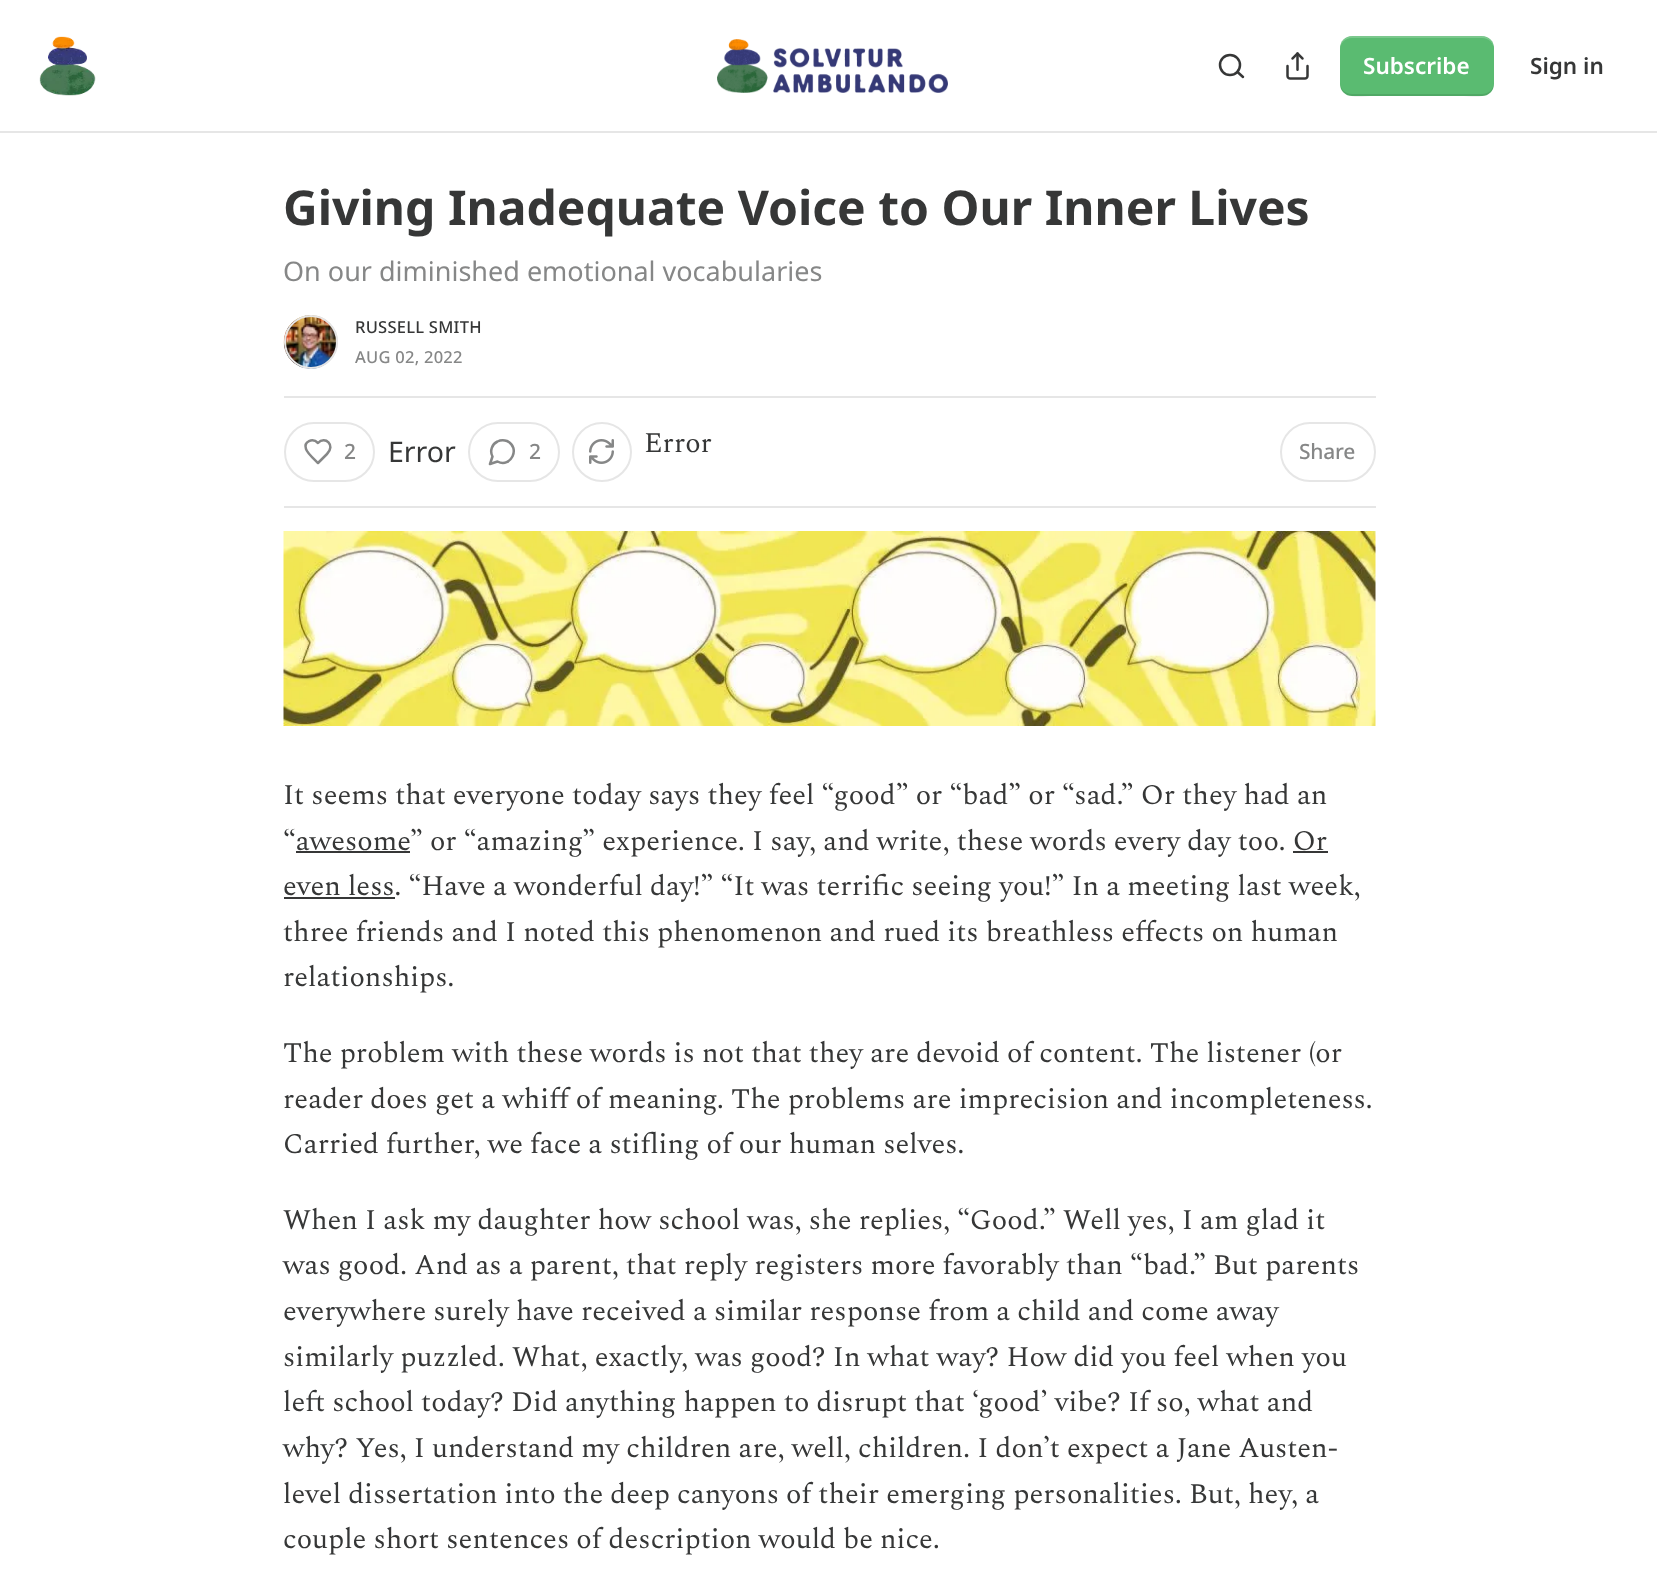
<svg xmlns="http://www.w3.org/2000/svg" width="1657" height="1572">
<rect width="100%" height="100%" fill="#fff"/>
<rect y="131" width="1657" height="2" fill="#e6e6e6"/>
<image x="39" y="36" width="57" height="60" href="media/1.png"/>
<image x="717" y="39" width="231" height="54" href="media/2.png"/>
<circle cx="1230" cy="65" r="10" fill="none" stroke="#363737" stroke-width="2.5"/>
<path d="M1243 77l-5.5-5" fill="none" stroke="#363737" stroke-width="2.5" stroke-linecap="round" stroke-linejoin="round"/>
<image x="1286" y="52" width="23" height="28" href="media/3.png"/>
<rect x="1340" y="36" width="154" height="60" rx="12" fill="#5abb71"/>
<path d="M1340 82c0 19 20 14 34 14h86c14 0 34 5 34-14c0 7-5 12-12 12h-130c-7 0-12-5-12-12z" fill="#0000001a"/>
<path d="M1352 38h130c7 0 12 5 12 12c0-19-20-14-34-14h-86c-14 0-34-5-34 14c0-7 5-12 12-12z" fill="#ffffff33"/>
<text x="1363" y="74" style="font-family:Noto Sans;font-size:22.5px;font-weight:600;fill:#fff">Subscribe</text>
<text x="1530" y="74" style="font-family:Noto Sans;font-size:22.5px;font-weight:600;fill:#363737">Sign in</text>
<text x="283" y="225" style="font-family:Noto Sans;font-size:48px;font-weight:bold;fill:#363737">Giving Inadequate Voice to Our Inner Lives</text>
<text x="283" y="281" style="font-family:Noto Sans;font-size:27px;fill:#868787">On our diminished emotional vocabularies</text>
<circle cx="311" cy="342" r="26" fill="none" stroke="#e6e6e6" stroke-width="2"/>
<image x="283" y="315" width="55" height="54" href="media/4.png"/>
<circle cx="311" cy="342" r="26" fill="none" stroke="#e6e6e6" stroke-width="2"/>
<text x="355" y="333" style="font-family:Noto Sans;font-size:16.5px;font-weight:500;letter-spacing:0.25px;fill:#363737">RUSSELL SMITH</text>
<text x="355" y="363" style="font-family:Noto Sans;font-size:16.5px;font-weight:500;letter-spacing:0.25px;fill:#868787">AUG 02, 2022</text>
<rect x="284" y="396" width="1092" height="2" fill="#e6e6e6"/>
<rect x="284" y="506" width="1092" height="2" fill="#e6e6e6"/>
<rect x="285" y="423" width="89" height="58" rx="29" fill="none" stroke="#e6e6e6" stroke-width="2"/>
<path d="M327 454c9-9-2-18.5-9-11c-5.5-5.5-14.5-1.5-12 6c1 4 9 11 12 14z" fill="none" stroke="#868787" stroke-width="2.5" stroke-linecap="round" stroke-linejoin="round"/>
<text x="344" y="459" style="font-family:Noto Sans;font-size:21px;font-weight:500;letter-spacing:-0.25px;fill:#868787">2</text>
<text x="388" y="462" style="font-family:Noto Sans;font-size:28.5px;fill:#363737">Error</text>
<rect x="469" y="423" width="90" height="58" rx="29" fill="none" stroke="#e6e6e6" stroke-width="2"/>
<path d="M497.5 461.5c13.5 7 23.5-14 9.5-20.5c-3-1-6.5-1-9.5 .5c-5.5 2.5-8 9.5-5 15l-2.5 7.5z" fill="none" stroke="#868787" stroke-width="2.5" stroke-linecap="round" stroke-linejoin="round"/>
<text x="529" y="459" style="font-family:Noto Sans;font-size:21px;font-weight:500;letter-spacing:-0.25px;fill:#868787">2</text>
<circle cx="602" cy="452" r="29" fill="none" stroke="#e6e6e6" stroke-width="2"/>
<image x="589" y="439" width="25" height="25" href="media/5.png"/>
<text x="644" y="452" style="font-family:Spectral;font-size:28.5px;fill:#363737">Error</text>
<rect x="1281" y="423" width="94" height="58" rx="29" fill="none" stroke="#e6e6e6" stroke-width="2"/>
<text x="1299" y="459" style="font-family:Noto Sans;font-size:21px;font-weight:500;letter-spacing:-0.25px;fill:#868787">Share</text>
<image x="283" y="531" width="1093" height="195" href="media/6.png"/>
<text x="283" y="804" style="font-family:Spectral;font-size:28.5px;fill:#363737">It seems that everyone today says they feel “good” or “bad” or “sad.” Or they had an</text>
<text x="283" y="850" style="font-family:Spectral;font-size:28.5px;fill:#363737">“awesome</text>
<text x="410" y="850" style="font-family:Spectral;font-size:28.5px;fill:#363737">” or “amazing” experience. I say, and write, these words every day too. Or</text>
<rect x="296" y="851" width="114" height="2" fill="#363737"/>
<rect x="284" y="897" width="111" height="2" fill="#363737"/>
<text x="283" y="895" style="font-family:Spectral;font-size:28.5px;fill:#363737">even less. “Have a wonderful day!” “It was terrific seeing you!” In a meeting last week,</text>
<rect x="1293" y="851" width="35" height="2" fill="#363737"/>
<text x="283" y="941" style="font-family:Spectral;font-size:28.5px;fill:#363737">three friends and I noted this phenomenon and rued its breathless effects on human</text>
<text x="283" y="986" style="font-family:Spectral;font-size:28.5px;fill:#363737">relationships.</text>
<text x="283" y="1062" style="font-family:Spectral;font-size:28.5px;fill:#363737">The problem with these words is not that they are devoid of content. The listener (or</text>
<text x="283" y="1108" style="font-family:Spectral;font-size:28.5px;fill:#363737">reader does get a whiff of meaning. The problems are imprecision and incompleteness.</text>
<text x="283" y="1153" style="font-family:Spectral;font-size:28.5px;fill:#363737">Carried further, we face a stifling of our human selves.</text>
<text x="283" y="1229" style="font-family:Spectral;font-size:28.5px;fill:#363737">When I ask my daughter how school was, she replies, “Good.” Well yes, I am glad it</text>
<text x="283" y="1274" style="font-family:Spectral;font-size:28.5px;fill:#363737">was good. And as a parent, that reply registers more favorably than “bad.” But parents</text>
<text x="283" y="1320" style="font-family:Spectral;font-size:28.5px;fill:#363737">everywhere surely have received a similar response from a child and come away</text>
<text x="283" y="1366" style="font-family:Spectral;font-size:28.5px;fill:#363737">similarly puzzled. What, exactly, was good? In what way? How did you feel when you</text>
<text x="283" y="1411" style="font-family:Spectral;font-size:28.5px;fill:#363737">left school today? Did anything happen to disrupt that ‘good’ vibe? If so, what and</text>
<text x="283" y="1457" style="font-family:Spectral;font-size:28.5px;fill:#363737">why? Yes, I understand my children are, well, children. I don’t expect a Jane Austen-</text>
<text x="283" y="1503" style="font-family:Spectral;font-size:28.5px;fill:#363737">level dissertation into the deep canyons of their emerging personalities. But, hey, a</text>
<text x="283" y="1548" style="font-family:Spectral;font-size:28.5px;fill:#363737">couple short sentences of description would be nice.</text>
</svg>
